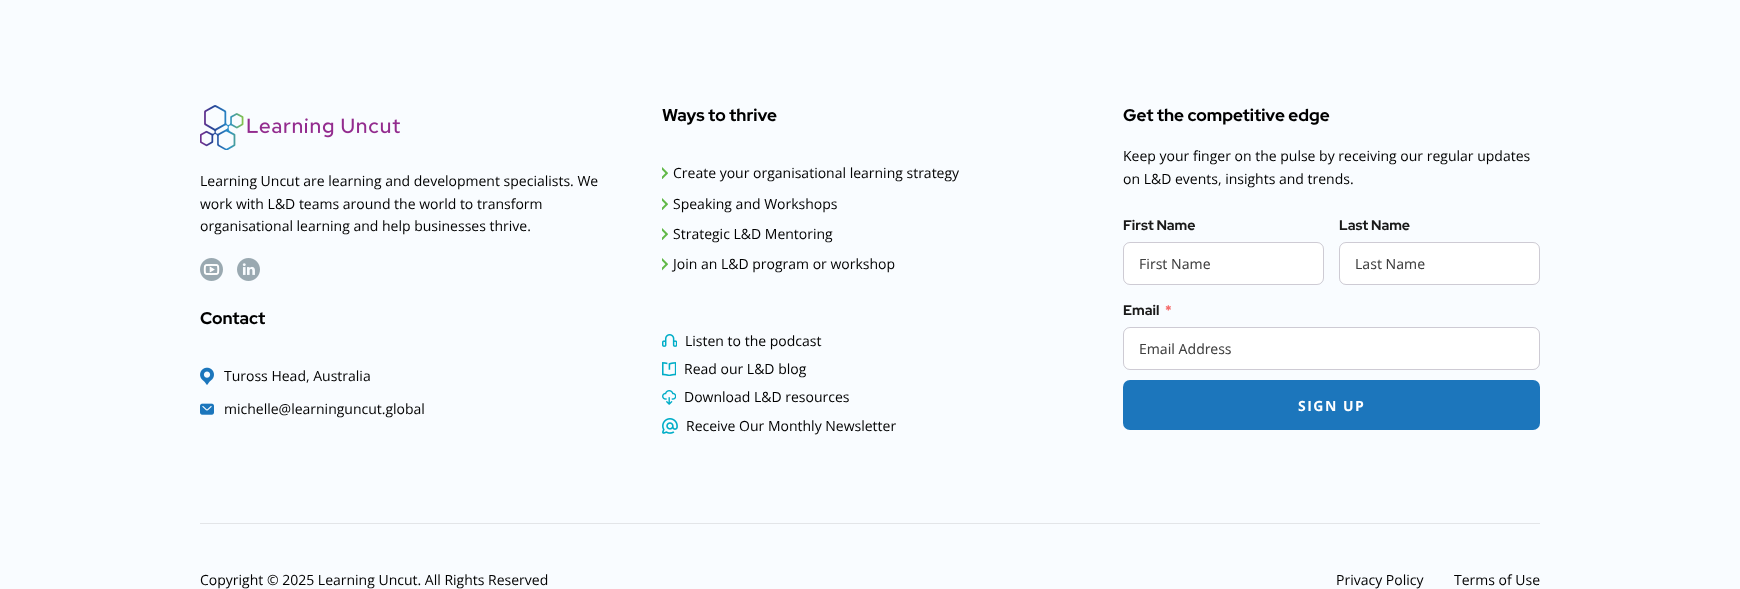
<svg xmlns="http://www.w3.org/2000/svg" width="1740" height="589">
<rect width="100%" height="100%" fill="#f9fcff"/>
<image x="200" y="105" width="200" height="45" href="media/1.png"/>
<text x="200" y="186" style="font-family:Open Sans;font-size:14px;fill:#000">Learning Uncut are learning and development specialists. We</text>
<text x="200" y="209" style="font-family:Open Sans;font-size:14px;fill:#000">work with L&amp;D teams around the world to transform</text>
<text x="200" y="231" style="font-family:Open Sans;font-size:14px;fill:#000">organisational learning and help businesses thrive.</text>
<image x="200" y="258" width="23" height="23" href="media/2.png"/>
<image x="237" y="258" width="23" height="23" href="media/3.png"/>
<text x="200" y="324" style="font-family:Red Hat Display;font-size:17px;font-weight:800;fill:#000">Contact</text>
<image x="200" y="367" width="14" height="18" href="media/4.png"/>
<text x="224" y="381" style="font-family:Open Sans;font-size:14px;fill:#000">Tuross Head, Australia</text>
<image x="200" y="403" width="14" height="12" href="media/5.png"/>
<text x="224" y="414" style="font-family:Open Sans;font-size:14px;fill:#000">michelle@learninguncut.global</text>
<text x="662" y="121" style="font-family:Red Hat Display;font-size:17px;font-weight:800;fill:#000">Ways to thrive</text>
<image x="662" y="167" width="6" height="12" href="media/6.png"/>
<text x="673" y="178" style="font-family:Open Sans;font-size:14px;fill:#000">Create your organisational learning strategy</text>
<image x="662" y="198" width="6" height="12" href="media/6.png"/>
<text x="673" y="209" style="font-family:Open Sans;font-size:14px;fill:#000">Speaking and Workshops</text>
<image x="662" y="228" width="6" height="12" href="media/6.png"/>
<text x="673" y="239" style="font-family:Open Sans;font-size:14px;fill:#000">Strategic L&amp;D Mentoring</text>
<image x="662" y="258" width="6" height="13" href="media/7.png"/>
<text x="673" y="269" style="font-family:Open Sans;font-size:14px;fill:#000">Join an L&amp;D program or workshop</text>
<image x="662" y="334" width="15" height="13" href="media/8.png"/>
<text x="685" y="346" style="font-family:Open Sans;font-size:14px;fill:#000">Listen to the podcast</text>
<image x="662" y="362" width="14" height="14" href="media/9.png"/>
<text x="684" y="374" style="font-family:Open Sans;font-size:14px;fill:#000">Read our L&amp;D blog</text>
<image x="662" y="390" width="14" height="15" href="media/10.png"/>
<text x="684" y="402" style="font-family:Open Sans;font-size:14px;fill:#000">Download L&amp;D resources</text>
<image x="662" y="418" width="16" height="16" href="media/11.png"/>
<text x="686" y="431" style="font-family:Open Sans;font-size:14px;fill:#000">Receive Our Monthly Newsletter</text>
<text x="1123" y="121" style="font-family:Red Hat Display;font-size:17px;font-weight:800;fill:#000">Get the competitive edge</text>
<text x="1123" y="161" style="font-family:Open Sans;font-size:14px;fill:#000">Keep your finger on the pulse by receiving our regular updates</text>
<text x="1123" y="184" style="font-family:Open Sans;font-size:14px;fill:#000">on L&amp;D events, insights and trends.</text>
<text x="1123" y="230" style="font-family:Red Hat Display;font-size:14px;font-weight:bold;fill:#1a1a1a">First Name</text>
<rect x="1124" y="243" width="199" height="41" rx="6" fill="#fff"/>
<rect x="1123.5" y="242.5" width="200" height="42" rx="6.5" fill="none" stroke="#230c2733"/>
<text x="1139" y="269" style="font-family:Noto Sans;font-size:14px;fill:#404040">First Name</text>
<text x="1339" y="230" style="font-family:Red Hat Display;font-size:14px;font-weight:bold;fill:#1a1a1a">Last Name</text>
<rect x="1340" y="243" width="199" height="41" rx="6" fill="#fff"/>
<rect x="1339.5" y="242.5" width="200" height="42" rx="6.5" fill="none" stroke="#230c2733"/>
<text x="1355" y="269" style="font-family:Noto Sans;font-size:14px;fill:#404040">Last Name</text>
<text x="1123" y="315" style="font-family:Red Hat Display;font-size:14px;font-weight:bold;fill:#1a1a1a">Email</text>
<text x="1165" y="315" style="font-family:Red Hat Display;font-size:14px;font-weight:bold;fill:#f56c6c">*</text>
<rect x="1124" y="328" width="415" height="41" rx="6" fill="#fff"/>
<rect x="1123.5" y="327.5" width="416" height="42" rx="6.5" fill="none" stroke="#230c2733"/>
<text x="1139" y="354" style="font-family:Noto Sans;font-size:14px;fill:#404040">Email Address</text>
<rect x="1123" y="380" width="417" height="50" rx="7" fill="#1c76bc"/>
<text x="1298" y="411" style="font-family:Open Sans;font-size:14px;font-weight:bold;letter-spacing:1.5px;fill:#fff">SIGN UP</text>
<rect x="200" y="523" width="1340" height="1" fill="#e3e5e8"/>
<text x="200" y="585" style="font-family:Open Sans;font-size:14px;fill:#000">Copyright © 2025 Learning Uncut. All Rights Reserved</text>
<text x="1336" y="585" style="font-family:Open Sans;font-size:14px;fill:#000">Privacy Policy</text>
<text x="1454" y="585" style="font-family:Open Sans;font-size:14px;fill:#000">Terms of Use</text>
</svg>
